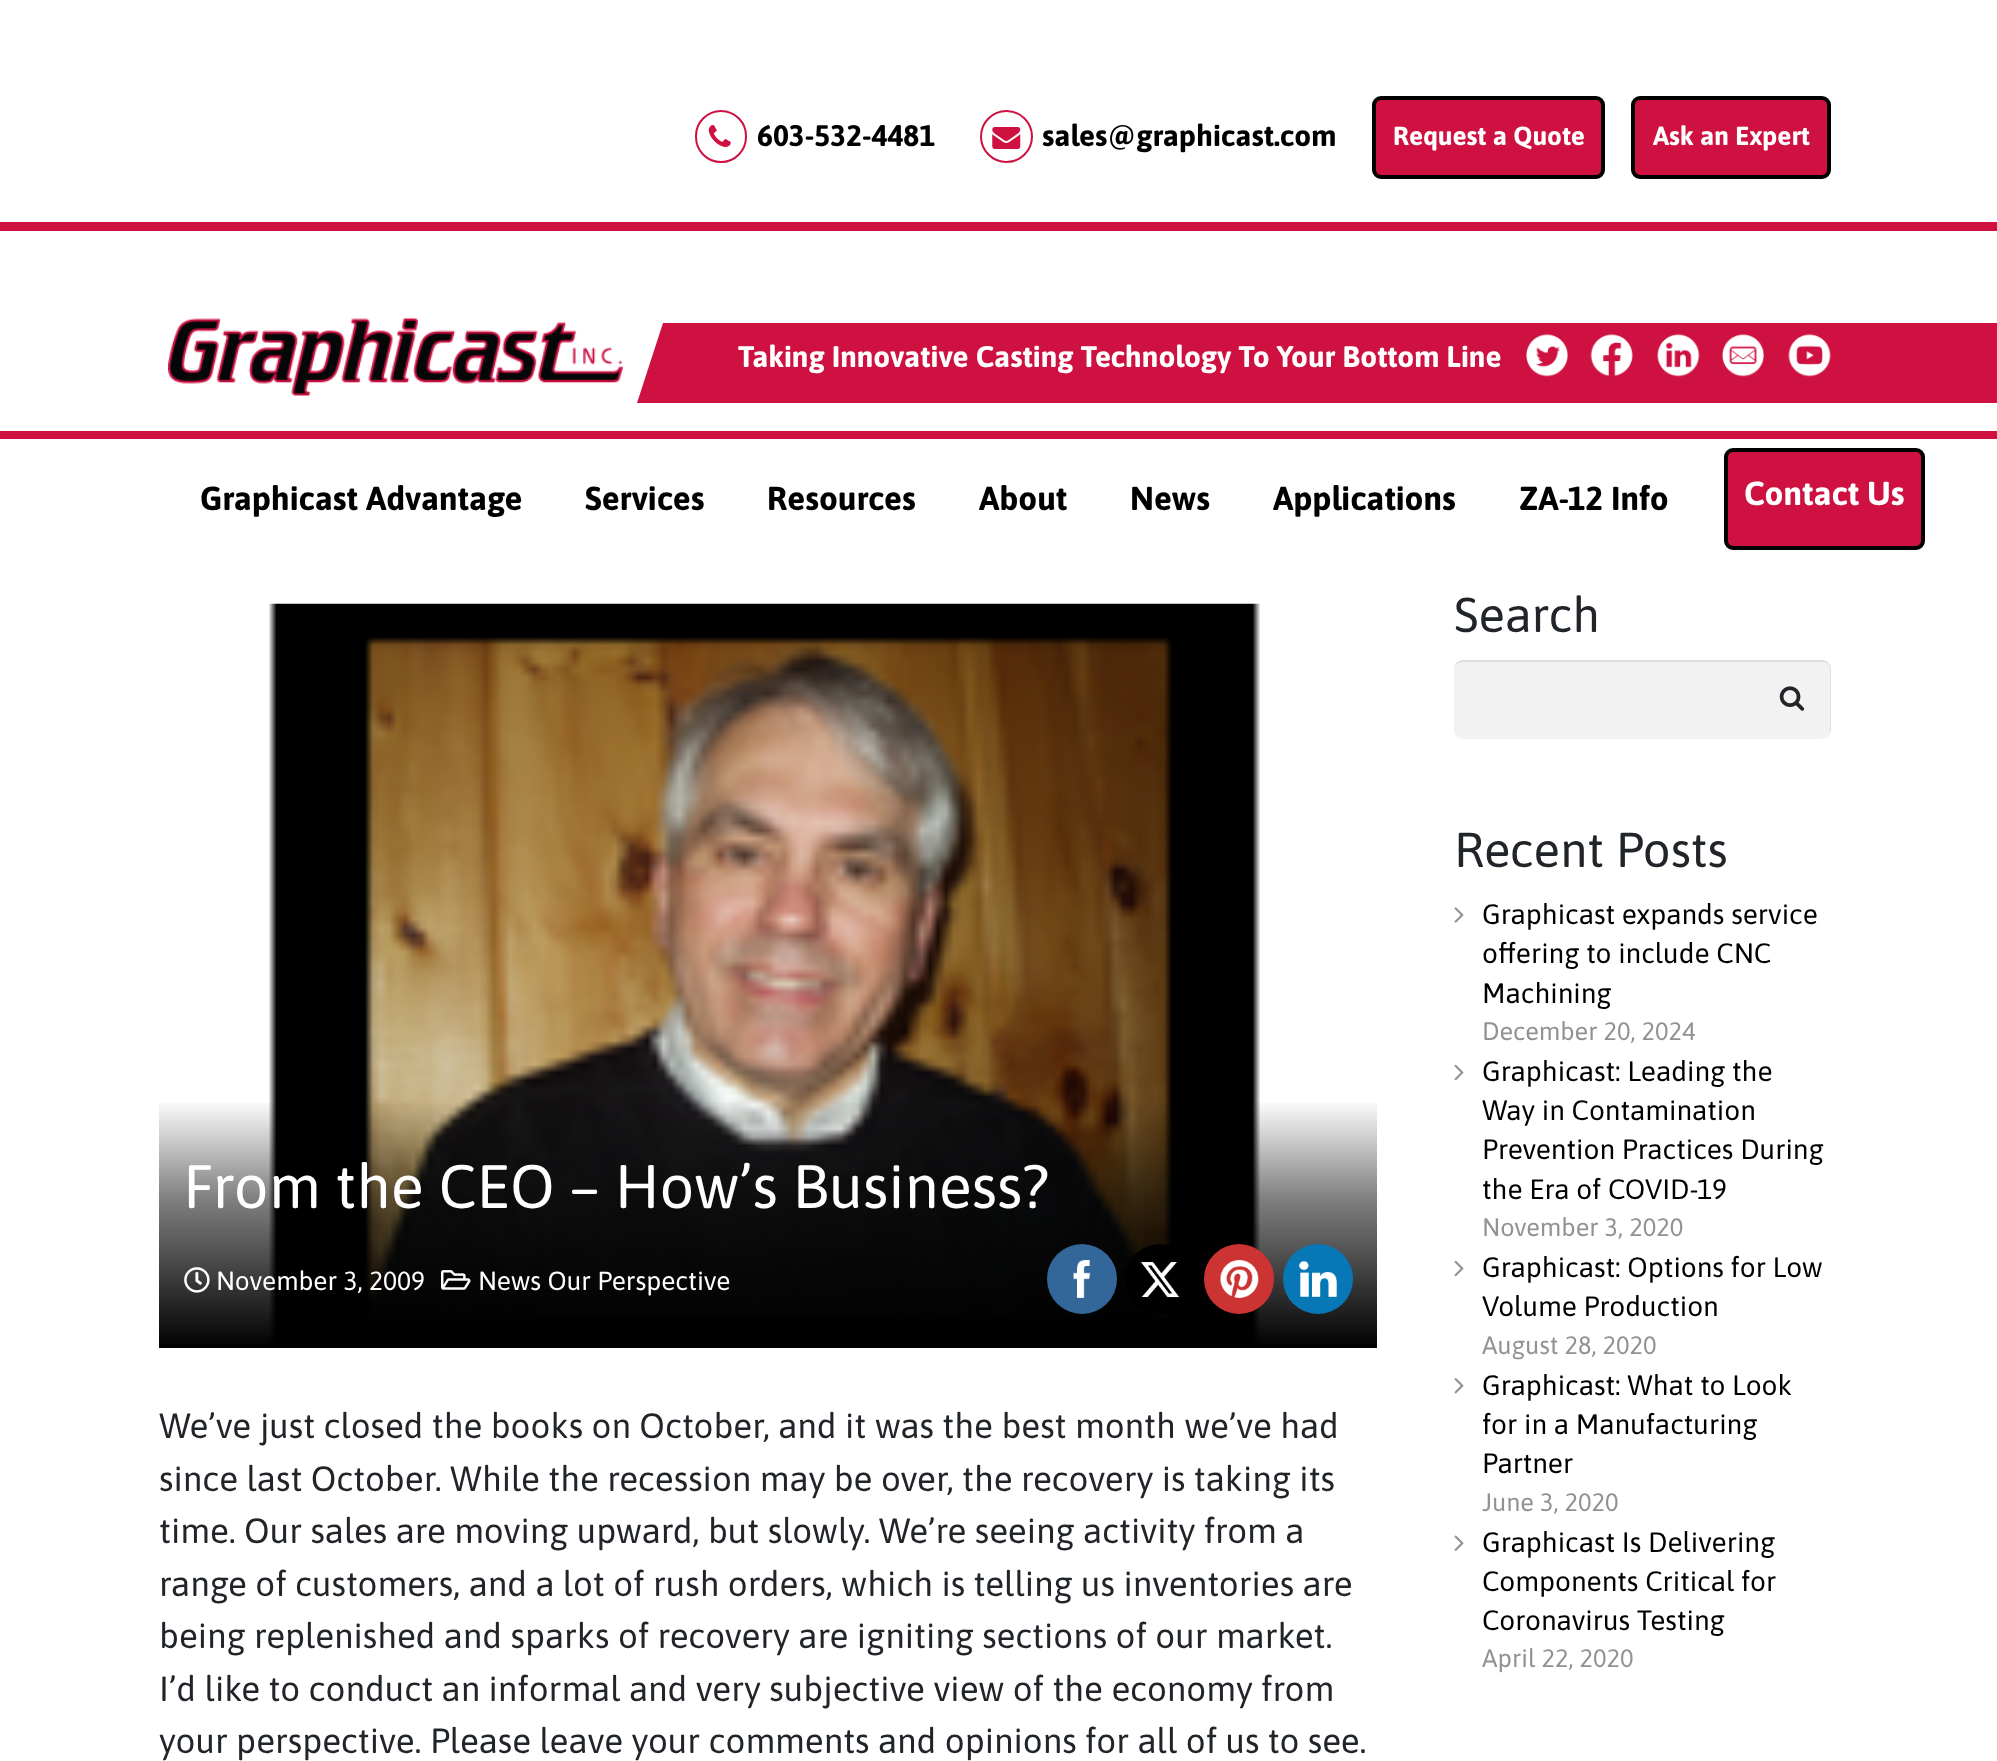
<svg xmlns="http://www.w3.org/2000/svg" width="1997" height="1761">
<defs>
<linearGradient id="g1" gradientUnits="userSpaceOnUse" x1="768" y1="1348" x2="768" y2="1099"><stop offset="0" stop-color="#000"/><stop offset="0.6" stop-color="#000" stop-opacity="0.5"/><stop offset="1" stop-color="#000" stop-opacity="0"/></linearGradient>
</defs>
<rect width="100%" height="100%" fill="#fff"/>
<rect y="222" width="1997" height="9" fill="#ce1141"/>
<rect x="696" y="111" width="50" height="51" rx="25" fill="none" stroke="#ce1141" stroke-width="2"/>
<image x="708" y="125" width="23" height="22" href="media/1.png"/>
<text x="757" y="146" style="font-family:Asap;font-size:29.75px;font-weight:bold;fill:#000">603-532-4481</text>
<circle cx="1006.5" cy="136.5" r="25.5" fill="none" stroke="#ce1141" stroke-width="2"/>
<image x="992" y="127" width="29" height="22" href="media/2.png"/>
<text x="1042" y="146" style="font-family:Asap;font-size:29.75px;font-weight:bold;fill:#000">sales@graphicast.com</text>
<rect x="1374" y="98" width="229" height="79" rx="7" fill="#ce1141" stroke="#000" stroke-width="4"/>
<text x="1393" y="145" style="font-family:Asap;font-size:26.25px;font-weight:bold;fill:#fff">Request a Quote</text>
<rect x="1633" y="98" width="196" height="79" rx="7" fill="#ce1141" stroke="#000" stroke-width="4"/>
<text x="1653" y="145" style="font-family:Asap;font-size:26.25px;font-weight:bold;fill:#fff">Ask an Expert</text>
<rect y="431" width="1997" height="8" fill="#ce1141"/>
<image x="168" y="318" width="455" height="78" href="media/3.png"/>
<path d="M663 323h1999l-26 80h-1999z" fill="#ce1141"/>
<text x="738" y="367" style="font-family:Asap;font-size:29.75px;font-weight:bold;fill:#fff">Taking Innovative Casting Technology To Your Bottom Line</text>
<image x="1526" y="334" width="42" height="43" href="media/4.png"/>
<image x="1590" y="334" width="43" height="43" href="media/5.png"/>
<image x="1657" y="334" width="43" height="43" href="media/6.png"/>
<image x="1722" y="334" width="42" height="43" href="media/7.png"/>
<image x="1788" y="334" width="43" height="43" href="media/8.png"/>
<text x="200" y="510" style="font-family:Asap;font-size:33.25px;font-weight:bold;fill:#000">Graphicast Advantage</text>
<text x="585" y="510" style="font-family:Asap;font-size:33.25px;font-weight:bold;fill:#000">Services</text>
<text x="767" y="510" style="font-family:Asap;font-size:33.25px;font-weight:bold;fill:#000">Resources</text>
<text x="979" y="510" style="font-family:Asap;font-size:33.25px;font-weight:bold;fill:#000">About</text>
<text x="1130" y="510" style="font-family:Asap;font-size:33.25px;font-weight:bold;fill:#000">News</text>
<text x="1273" y="510" style="font-family:Asap;font-size:33.25px;font-weight:bold;fill:#000">Applications</text>
<text x="1519" y="510" style="font-family:Asap;font-size:33.25px;font-weight:bold;fill:#000">ZA-12 Info</text>
<rect x="1726" y="450" width="197" height="98" rx="7" fill="#ce1141" stroke="#000" stroke-width="4"/>
<text x="1744" y="505" style="font-family:Asap;font-size:33.25px;font-weight:bold;fill:#fff">Contact Us</text>
<image x="269" y="603" width="991" height="743" href="media/9.png"/>
<rect x="159" y="1103" width="1218" height="245" fill="url(#g1)"/>
<text x="183" y="1208" style="font-family:Asap;font-size:61.25px;fill:#fff">From the CEO – How’s Business?</text>
<image x="184" y="1267" width="26" height="26" href="media/10.png"/>
<text x="216" y="1290" style="font-family:Asap;font-size:26.25px;fill:#fff">November 3, 2009</text>
<image x="441" y="1270" width="30" height="20" href="media/11.png"/>
<text x="478" y="1290" style="font-family:Asap;font-size:26.25px;fill:#fff">News Our Perspective</text>
<circle cx="1082" cy="1279" r="35" fill="#369"/>
<image x="1073" y="1260" width="18" height="38" href="media/12.png"/>
<circle cx="1160" cy="1279" r="35" fill="#000"/>
<image x="1141" y="1262" width="39" height="36" href="media/13.png"/>
<circle cx="1239" cy="1279" r="35" fill="#c33"/>
<image x="1220" y="1260" width="39" height="38" href="media/14.png"/>
<circle cx="1318" cy="1279" r="35" fill="#0877b5"/>
<image x="1299" y="1260" width="38" height="37" href="media/15.png"/>
<text x="159" y="1438" style="font-family:Asap;font-size:35px;fill:#212529">We’ve just closed the books on October, and it was the best month we’ve had</text>
<text x="159" y="1491" style="font-family:Asap;font-size:35px;fill:#212529">since last October. While the recession may be over, the recovery is taking its</text>
<text x="159" y="1543" style="font-family:Asap;font-size:35px;fill:#212529">time. Our sales are moving upward, but slowly. We’re seeing activity from a</text>
<text x="159" y="1596" style="font-family:Asap;font-size:35px;fill:#212529">range of customers, and a lot of rush orders, which is telling us inventories are</text>
<text x="159" y="1648" style="font-family:Asap;font-size:35px;fill:#212529">being replenished and sparks of recovery are igniting sections of our market.</text>
<text x="159" y="1701" style="font-family:Asap;font-size:35px;fill:#212529">I’d like to conduct an informal and very subjective view of the economy from</text>
<text x="159" y="1753" style="font-family:Asap;font-size:35px;fill:#212529">your perspective. Please leave your comments and opinions for all of us to see.</text>
<text x="1454" y="632" style="font-family:Asap;font-size:49px;fill:#212529">Search</text>
<rect x="1454" y="660" width="377" height="79" rx="9" fill="#f2f2f2"/>
<path d="M1463 662h359c5 0 8 3 8 8v62l-1 3c1-1 2-3 2-5v-61c0-5-4-9-9-9h-359c-5 0-9 4-9 9v1c0-5 4-8 9-8z" fill="#00000014"/>
<image x="1779" y="686" width="26" height="25" href="media/16.png"/>
<text x="1454" y="867" style="font-family:Asap;font-size:49px;fill:#212529">Recent Posts</text>
<image x="1454" y="907" width="10" height="16" href="media/17.png"/>
<text x="1482" y="924" style="font-family:Asap;font-size:28px;fill:#000">Graphicast expands service</text>
<text x="1482" y="963" style="font-family:Asap;font-size:28px;fill:#000">offering to include CNC</text>
<text x="1482" y="1003" style="font-family:Asap;font-size:28px;fill:#000">Machining</text>
<text x="1482" y="1040" style="font-family:Asap;font-size:25.25px;fill:#909294">December 20, 2024</text>
<image x="1454" y="1064" width="10" height="17" href="media/18.png"/>
<text x="1482" y="1081" style="font-family:Asap;font-size:28px;fill:#000">Graphicast: Leading the</text>
<text x="1482" y="1120" style="font-family:Asap;font-size:28px;fill:#000">Way in Contamination</text>
<text x="1482" y="1159" style="font-family:Asap;font-size:28px;fill:#000">Prevention Practices During</text>
<text x="1482" y="1199" style="font-family:Asap;font-size:28px;fill:#000">the Era of COVID-19</text>
<text x="1482" y="1236" style="font-family:Asap;font-size:25.25px;fill:#909294">November 3, 2020</text>
<image x="1454" y="1260" width="10" height="17" href="media/18.png"/>
<text x="1482" y="1277" style="font-family:Asap;font-size:28px;fill:#000">Graphicast: Options for Low</text>
<text x="1482" y="1316" style="font-family:Asap;font-size:28px;fill:#000">Volume Production</text>
<text x="1482" y="1354" style="font-family:Asap;font-size:25.25px;fill:#909294">August 28, 2020</text>
<image x="1454" y="1378" width="10" height="16" href="media/19.png"/>
<text x="1482" y="1395" style="font-family:Asap;font-size:28px;fill:#000">Graphicast: What to Look</text>
<text x="1482" y="1434" style="font-family:Asap;font-size:28px;fill:#000">for in a Manufacturing</text>
<text x="1482" y="1473" style="font-family:Asap;font-size:28px;fill:#000">Partner</text>
<text x="1482" y="1511" style="font-family:Asap;font-size:25.25px;fill:#909294">June 3, 2020</text>
<image x="1454" y="1535" width="10" height="16" href="media/20.png"/>
<text x="1482" y="1552" style="font-family:Asap;font-size:28px;fill:#000">Graphicast Is Delivering</text>
<text x="1482" y="1591" style="font-family:Asap;font-size:28px;fill:#000">Components Critical for</text>
<text x="1482" y="1630" style="font-family:Asap;font-size:28px;fill:#000">Coronavirus Testing</text>
<text x="1482" y="1667" style="font-family:Asap;font-size:25.25px;fill:#909294">April 22, 2020</text>
</svg>
